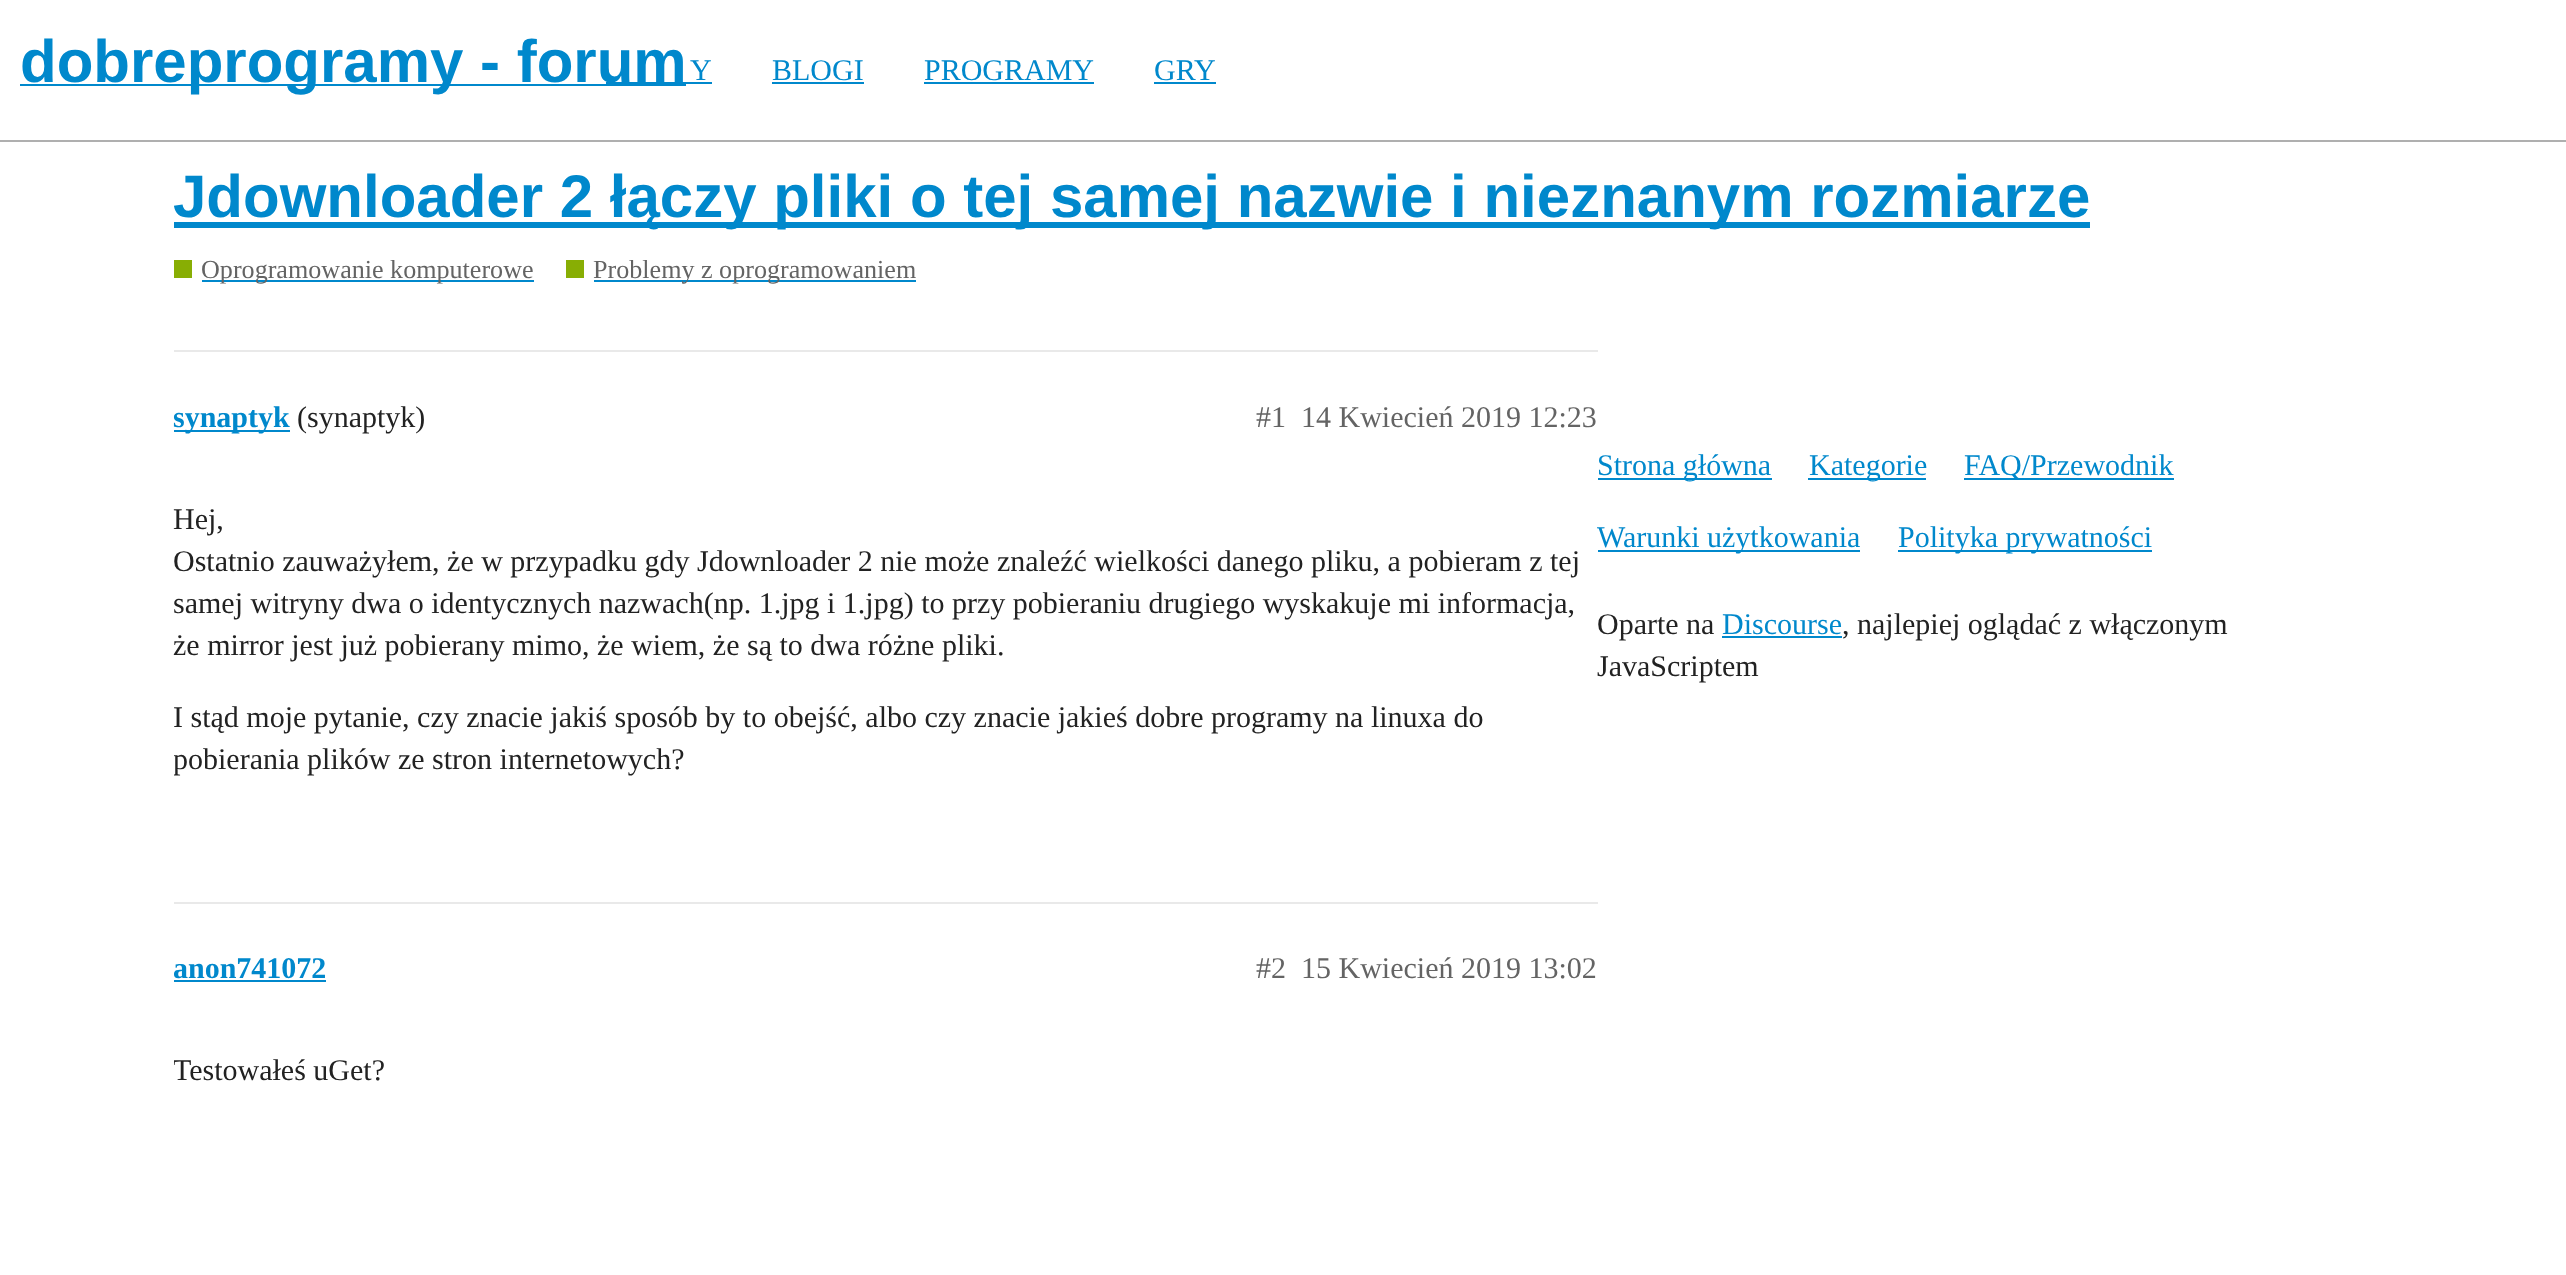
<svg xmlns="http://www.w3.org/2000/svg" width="2566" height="1275">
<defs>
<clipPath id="clip1"><rect x="174" y="470" width="1424" height="342"/></clipPath>
<clipPath id="clip2"><rect x="174" y="1020" width="1424" height="102"/></clipPath>
</defs>
<rect width="100%" height="100%" fill="#fff"/>
<rect y="140" width="2566" height="2" fill="#afafaf"/>
<rect x="20" y="84" width="666" height="2" fill="#08c"/>
<text x="20" y="82" style="font-family:Liberation Sans;font-size:60px;font-weight:bold;fill:#08c">dobreprogramy - forum</text>
<text x="690" y="80" style="font-family:Liberation Serif;font-size:30px;fill:#08c">Y</text>
<rect x="606" y="82" width="106" height="2" fill="#08c"/>
<text x="772" y="80" style="font-family:Liberation Serif;font-size:30px;fill:#08c">BLOGI</text>
<rect x="772" y="82" width="92" height="2" fill="#08c"/>
<text x="924" y="80" style="font-family:Liberation Serif;font-size:30px;fill:#08c">PROGRAMY</text>
<rect x="924" y="82" width="170" height="2" fill="#08c"/>
<text x="1154" y="80" style="font-family:Liberation Serif;font-size:30px;fill:#08c">GRY</text>
<rect x="1154" y="82" width="62" height="2" fill="#08c"/>
<rect x="174" y="222" width="1916" height="6" fill="#08c"/>
<text x="173" y="217" style="font-family:Liberation Sans;font-size:60px;font-weight:bold;fill:#08c">Jdownloader 2 łączy pliki o tej samej nazwie i nieznanym rozmiarze</text>
<rect x="174" y="260" width="18" height="18" fill="#88ae04"/>
<rect x="202" y="280" width="332" height="2" fill="#08c"/>
<text x="201" y="278" style="font-family:Liberation Serif;font-size:26.1px;fill:#646464">Oprogramowanie komputerowe</text>
<rect x="566" y="260" width="18" height="18" fill="#88ae04"/>
<rect x="594" y="280" width="322" height="2" fill="#08c"/>
<text x="593" y="278" style="font-family:Liberation Serif;font-size:26.1px;fill:#646464">Problemy z oprogramowaniem</text>
<rect x="174" y="350" width="1424" height="2" fill="#e9e9e9"/>
<rect x="174" y="430" width="116" height="2" fill="#08c"/>
<text x="173" y="427" style="font-family:Liberation Serif;font-size:30px;font-weight:bold;fill:#08c">synaptyk</text>
<text x="297" y="427" style="font-family:Liberation Serif;font-size:30px;fill:#222">(synaptyk)</text>
<text x="1256" y="427" style="font-family:Liberation Serif;font-size:30px;fill:#646464">#1</text>
<text x="1301" y="427" style="font-family:Liberation Serif;font-size:30px;fill:#646464">14 Kwiecień 2019 12:23</text>
<text x="173" y="529" style="font-family:Liberation Serif;font-size:30px;fill:#222">Hej,</text>
<text x="173" y="571" style="font-family:Liberation Serif;font-size:30px;fill:#222">Ostatnio zauważyłem, że w przypadku gdy Jdownloader 2 nie może znaleźć wielkości danego pliku, a pobieram z tej</text>
<text x="173" y="613" style="font-family:Liberation Serif;font-size:30px;fill:#222">samej witryny dwa o identycznych nazwach(np. 1.jpg i 1.jpg) to przy pobieraniu drugiego wyskakuje mi informacja,</text>
<text x="173" y="655" style="font-family:Liberation Serif;font-size:30px;fill:#222">że mirror jest już pobierany mimo, że wiem, że są to dwa różne pliki.</text>
<text x="173" y="727" style="font-family:Liberation Serif;font-size:30px;fill:#222">I stąd moje pytanie, czy znacie jakiś sposób by to obejść, albo czy znacie jakieś dobre programy na linuxa do</text>
<g clip-path="url(#clip1)">
<text x="173" y="769" style="font-family:Liberation Serif;font-size:30px;fill:#222">pobierania plików ze stron internetowych?</text>
</g>
<rect x="174" y="902" width="1424" height="2" fill="#e9e9e9"/>
<text x="173" y="978" style="font-family:Liberation Serif;font-size:30px;font-weight:bold;fill:#08c">anon741072</text>
<rect x="174" y="980" width="152" height="2" fill="#08c"/>
<text x="1256" y="978" style="font-family:Liberation Serif;font-size:30px;fill:#646464">#2</text>
<text x="1301" y="978" style="font-family:Liberation Serif;font-size:30px;fill:#646464">15 Kwiecień 2019 13:02</text>
<g clip-path="url(#clip2)">
<text x="173" y="1080" style="font-family:Liberation Serif;font-size:30px;fill:#222">Testowałeś uGet?</text>
</g>
<rect x="1598" y="478" width="174" height="2" fill="#08c"/>
<text x="1597" y="475" style="font-family:Liberation Serif;font-size:30px;fill:#08c">Strona główna</text>
<rect x="1808" y="478" width="118" height="2" fill="#08c"/>
<text x="1809" y="475" style="font-family:Liberation Serif;font-size:30px;fill:#08c">Kategorie</text>
<rect x="1964" y="478" width="210" height="2" fill="#08c"/>
<text x="1964" y="475" style="font-family:Liberation Serif;font-size:30px;fill:#08c">FAQ/Przewodnik</text>
<rect x="1598" y="550" width="262" height="2" fill="#08c"/>
<text x="1597" y="547" style="font-family:Liberation Serif;font-size:30px;fill:#08c">Warunki użytkowania</text>
<rect x="1898" y="550" width="254" height="2" fill="#08c"/>
<text x="1898" y="547" style="font-family:Liberation Serif;font-size:30px;fill:#08c">Polityka prywatności</text>
<text x="1597" y="634" style="font-family:Liberation Serif;font-size:30px;fill:#222">Oparte na</text>
<text x="1722" y="634" style="font-family:Liberation Serif;font-size:30px;fill:#08c">Discourse</text>
<rect x="1722" y="636" width="120" height="2" fill="#08c"/>
<text x="1842" y="634" style="font-family:Liberation Serif;font-size:30px;fill:#222">, najlepiej oglądać z włączonym</text>
<text x="1597" y="676" style="font-family:Liberation Serif;font-size:30px;fill:#222">JavaScriptem</text>
</svg>
